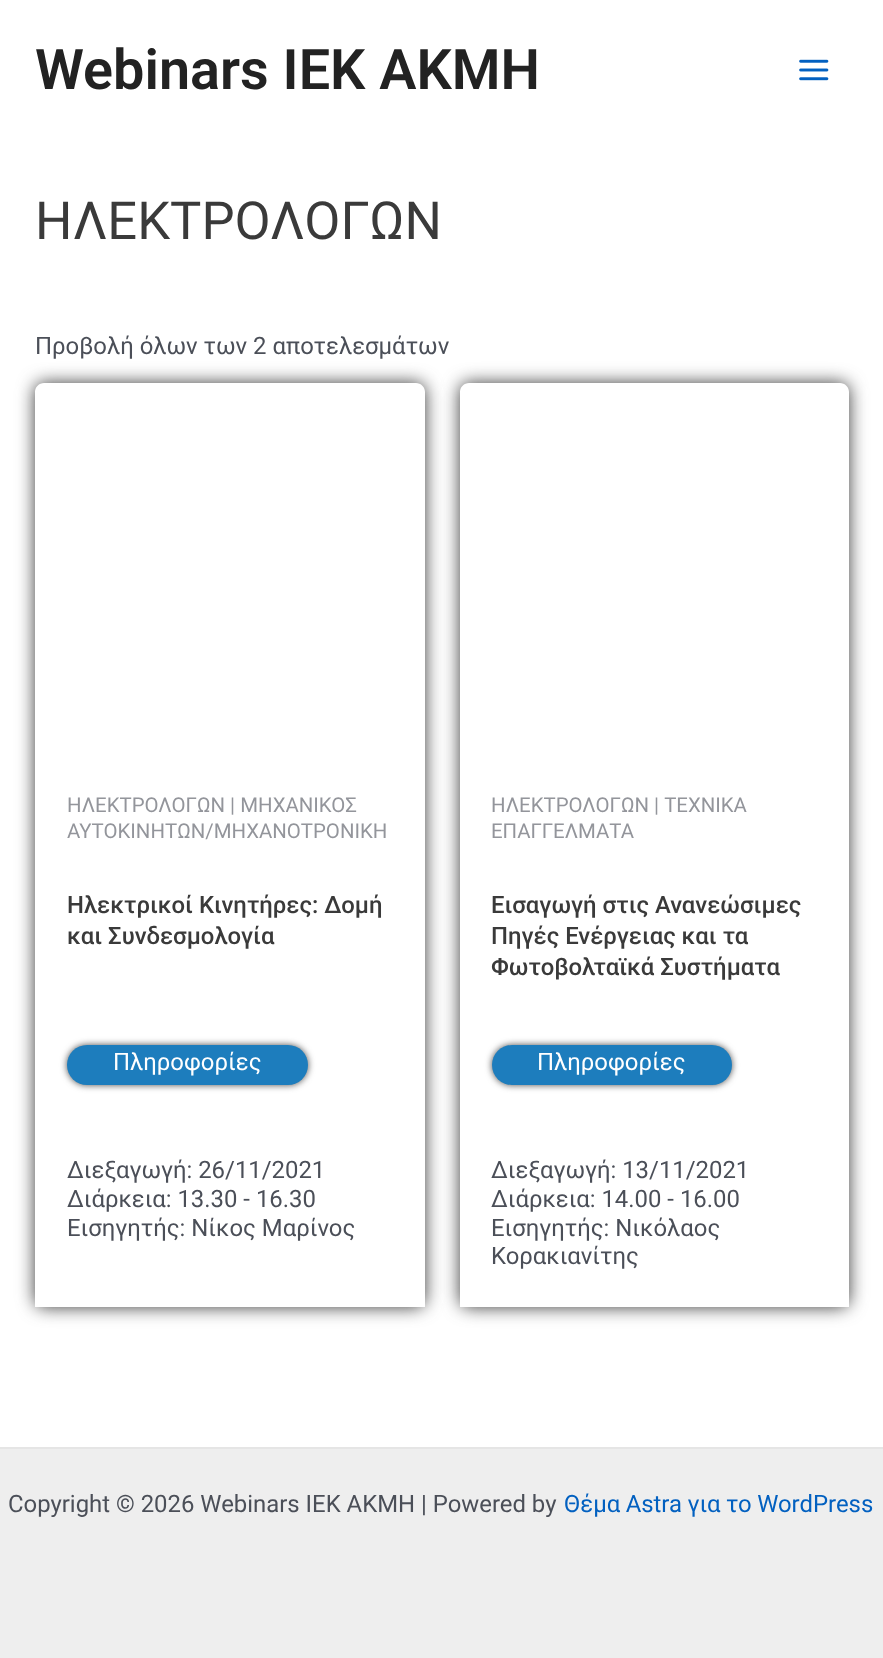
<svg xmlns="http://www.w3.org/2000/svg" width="883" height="1658">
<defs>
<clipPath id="clip1"><path d="M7 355h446v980h-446zm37 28h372c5 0 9 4 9 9v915h-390v-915c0-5 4-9 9-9z" clip-rule="evenodd"/></clipPath>
<clipPath id="clip2"><path d="M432 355h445v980h-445zm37 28h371c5 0 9 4 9 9v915h-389v-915c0-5 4-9 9-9z" clip-rule="evenodd"/></clipPath>
</defs>
<rect width="100%" height="100%" fill="#fff"/>
<text x="35" y="89" style="font-family:Roboto;font-size:55.75px;font-weight:600;fill:#222">Webinars IEK AKMH</text>
<image x="799" y="59" width="30" height="22" href="media/1.png"/>
<text x="35" y="239" style="font-family:Roboto;font-size:52.5px;fill:#3a3a3a">ΗΛΕΚΤΡΟΛΟΓΩΝ</text>
<text x="35" y="354" style="font-family:Roboto;font-size:23.9px;fill:#4b4f58">Προβολή όλων των 2 αποτελεσμάτων</text>
<g clip-path="url(#clip1)">
<rect x="35" y="383" width="390" height="924" rx="9" fill="#3a3a3a" filter="blur(9px)"/>
</g>
<text x="67" y="812" style="font-family:Roboto;font-size:20.4px;fill:#93959b">ΗΛΕΚΤΡΟΛΟΓΩΝ | ΜΗΧΑΝΙΚΟΣ</text>
<text x="67" y="838" style="font-family:Roboto;font-size:20.4px;fill:#93959b">ΑΥΤΟΚΙΝΗΤΩΝ/ΜΗΧΑΝΟΤΡΟΝΙΚΗ</text>
<text x="67" y="913" style="font-family:Roboto;font-size:23.9px;font-weight:500;fill:#3a3a3a">Ηλεκτρικοί Κινητήρες: Δομή</text>
<text x="67" y="944" style="font-family:Roboto;font-size:23.9px;font-weight:500;fill:#3a3a3a">και Συνδεσμολογία</text>
<rect x="67" y="1045" width="241" height="40" rx="20" fill="#4c4c4c" filter="blur(3.5px)"/>
<rect x="67" y="1045" width="241" height="40" rx="20" fill="#1d7dbd"/>
<text x="113" y="1070" style="font-family:Roboto;font-size:23.9px;fill:#fff">Πληροφορίες</text>
<text x="67" y="1178" style="font-family:Roboto;font-size:23.9px;fill:#4b4f58">Διεξαγωγή: 26/11/2021</text>
<text x="67" y="1207" style="font-family:Roboto;font-size:23.9px;fill:#4b4f58">Διάρκεια: 13.30 - 16.30</text>
<text x="67" y="1236" style="font-family:Roboto;font-size:23.9px;fill:#4b4f58">Εισηγητής: Νίκος Μαρίνος</text>
<g clip-path="url(#clip2)">
<rect x="460" y="383" width="389" height="924" rx="9" fill="#3a3a3a" filter="blur(9px)"/>
</g>
<text x="491" y="812" style="font-family:Roboto;font-size:20.4px;fill:#93959b">ΗΛΕΚΤΡΟΛΟΓΩΝ | ΤΕΧΝΙΚΑ</text>
<text x="491" y="838" style="font-family:Roboto;font-size:20.4px;fill:#93959b">ΕΠΑΓΓΕΛΜΑΤΑ</text>
<text x="491" y="913" style="font-family:Roboto;font-size:23.9px;font-weight:500;fill:#3a3a3a">Εισαγωγή στις Ανανεώσιμες</text>
<text x="491" y="944" style="font-family:Roboto;font-size:23.9px;font-weight:500;fill:#3a3a3a">Πηγές Ενέργειας και τα</text>
<text x="491" y="975" style="font-family:Roboto;font-size:23.9px;font-weight:500;fill:#3a3a3a">Φωτοβολταϊκά Συστήματα</text>
<rect x="492" y="1045" width="240" height="40" rx="20" fill="#4c4c4c" filter="blur(3.5px)"/>
<rect x="492" y="1045" width="240" height="40" rx="20" fill="#1d7dbd"/>
<text x="537" y="1070" style="font-family:Roboto;font-size:23.9px;fill:#fff">Πληροφορίες</text>
<text x="491" y="1178" style="font-family:Roboto;font-size:23.9px;fill:#4b4f58">Διεξαγωγή: 13/11/2021</text>
<text x="491" y="1207" style="font-family:Roboto;font-size:23.9px;fill:#4b4f58">Διάρκεια: 14.00 - 16.00</text>
<text x="491" y="1236" style="font-family:Roboto;font-size:23.9px;fill:#4b4f58">Εισηγητής: Νικόλαος</text>
<text x="491" y="1264" style="font-family:Roboto;font-size:23.9px;fill:#4b4f58">Κορακιανίτης</text>
<rect y="1449" width="883" height="209" fill="#eee"/>
<rect y="1447" width="883" height="2" fill="#e5e5e5"/>
<text x="8" y="1512" style="font-family:Roboto;font-size:23.9px;fill:#4b4f58">Copyright © 2026 Webinars IEK AKMH | Powered by</text>
<text x="564" y="1512" word-spacing="-0.5" style="font-family:Roboto;font-size:23.9px;fill:#0260c0">Θέμα Astra για το WordPress</text>
</svg>
